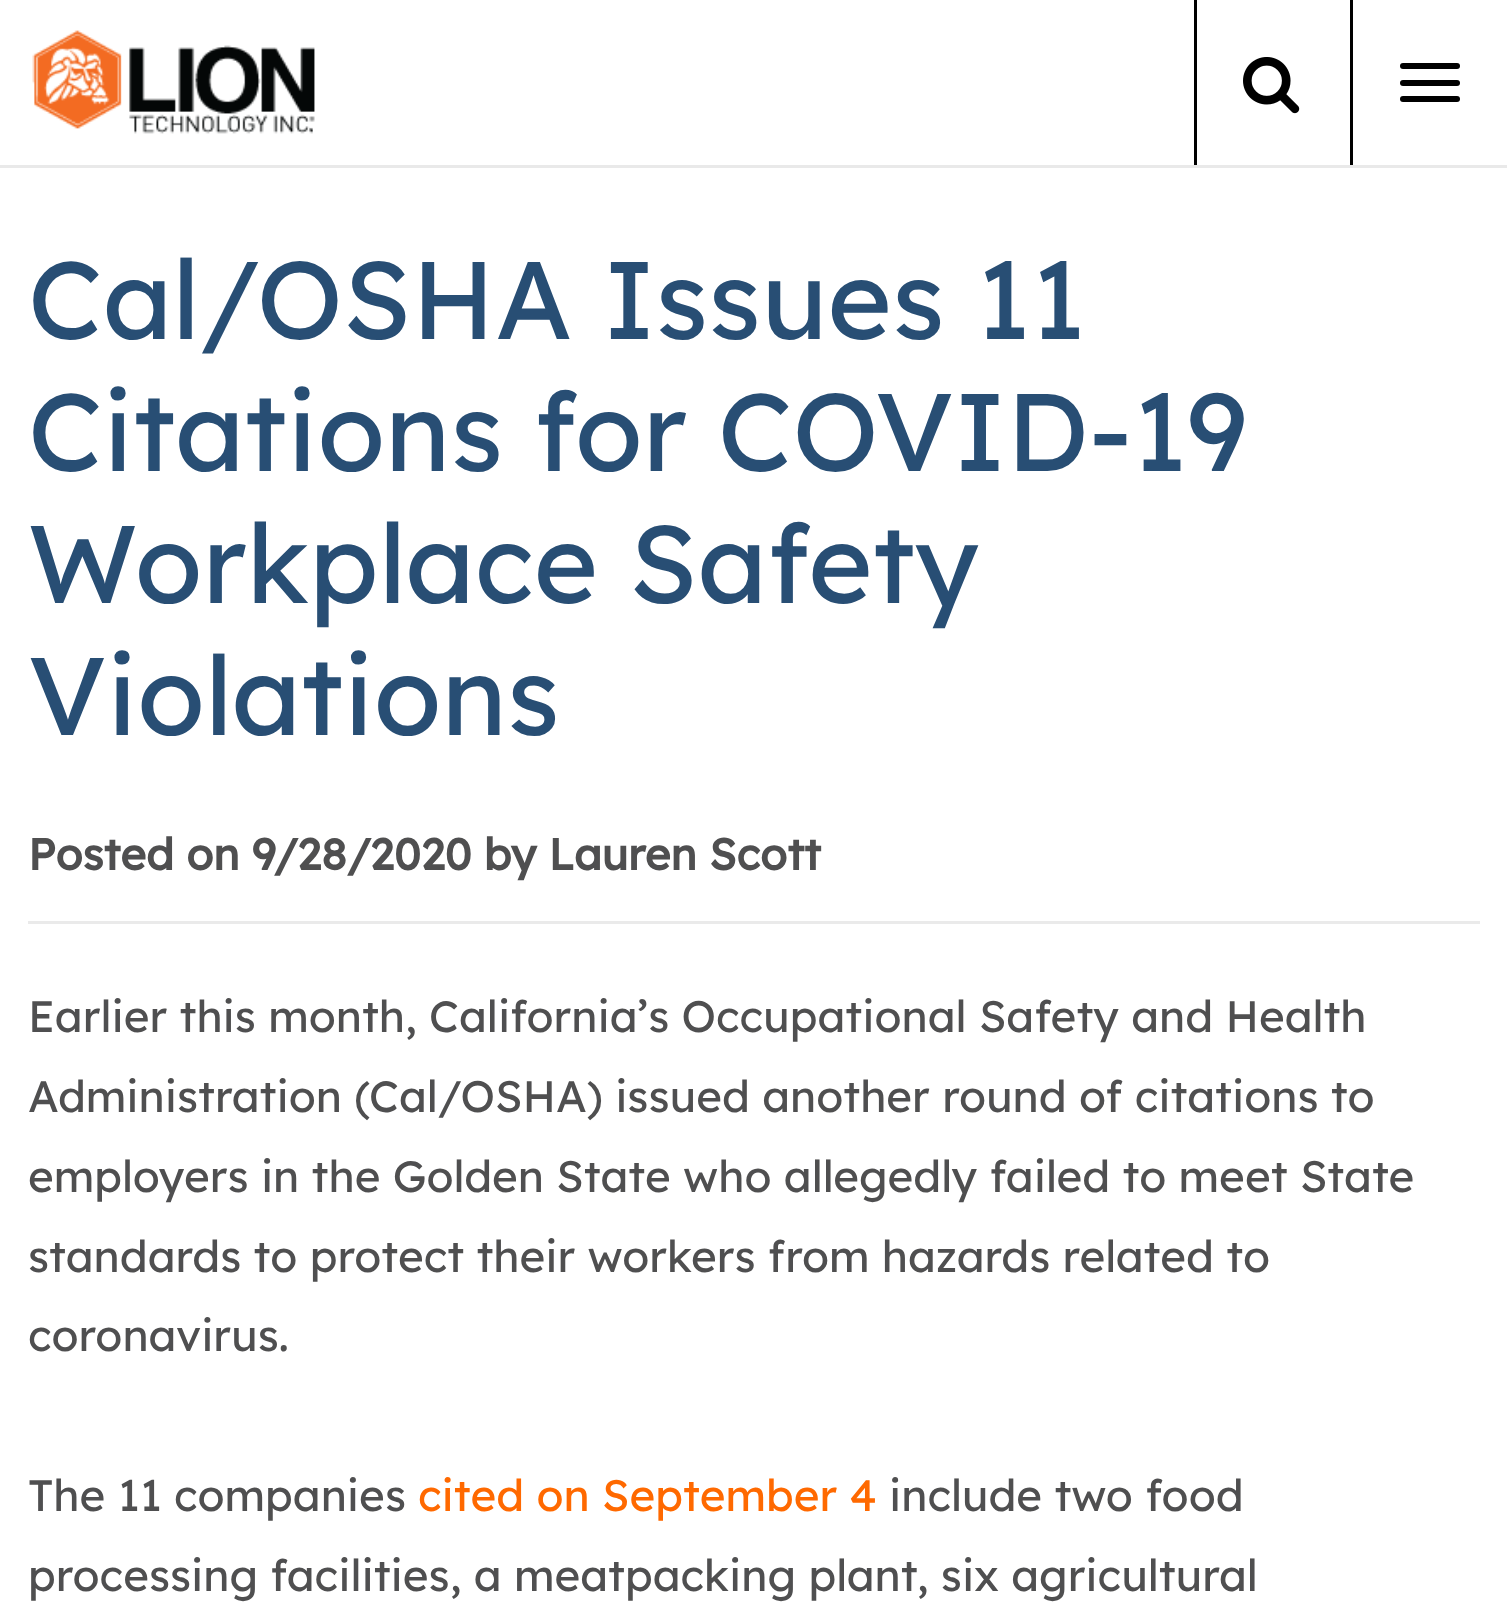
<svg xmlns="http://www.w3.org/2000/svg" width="1507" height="1612">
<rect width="100%" height="100%" fill="#fff"/>
<image x="32" y="30" width="283" height="104" href="media/1.png"/>
<rect x="1194" width="3" height="165" fill="#000"/>
<image x="1243" y="57" width="57" height="57" href="media/2.png"/>
<rect x="1350" width="3" height="165" fill="#000"/>
<rect x="1400" y="63" width="60" height="6" rx="3" fill="#000"/>
<rect x="1400" y="80" width="60" height="6" rx="3" fill="#000"/>
<rect x="1400" y="96" width="60" height="6" rx="3" fill="#000"/>
<rect y="165" width="1507" height="3" fill="#e9e9e9"/>
<rect x="28" y="921" width="1452" height="3" fill="#eaeaea"/>
<text x="28" y="339" style="font-family:Lexend;font-size:110px;fill:#284e74">Cal/OSHA Issues 11</text>
<text x="28" y="471" style="font-family:Lexend;font-size:110px;fill:#284e74">Citations for COVID-19</text>
<text x="28" y="603" style="font-family:Lexend;font-size:110px;fill:#284e74">Workplace Safety</text>
<text x="28" y="735" style="font-family:Lexend;font-size:110px;fill:#284e74">Violations</text>
<text x="28" y="870" style="font-family:Lexend;font-size:44px;font-weight:bold;fill:#4f4f50">Posted on 9/28/2020 by Lauren Scott</text>
<text x="28" y="1032" style="font-family:Lexend;font-size:44px;fill:#4f4f50">Earlier this month, California’s Occupational Safety and Health</text>
<text x="28" y="1112" style="font-family:Lexend;font-size:44px;fill:#4f4f50">Administration (Cal/OSHA) issued another round of citations to</text>
<text x="28" y="1192" style="font-family:Lexend;font-size:44px;fill:#4f4f50">employers in the Golden State who allegedly failed to meet State</text>
<text x="28" y="1272" style="font-family:Lexend;font-size:44px;fill:#4f4f50">standards to protect their workers from hazards related to</text>
<text x="28" y="1351" style="font-family:Lexend;font-size:44px;fill:#4f4f50">coronavirus.</text>
<text x="28" y="1511" style="font-family:Lexend;font-size:44px;fill:#4f4f50">The 11 companies</text>
<text x="418" y="1511" style="font-family:Lexend;font-size:44px;fill:#ff6900">cited on September 4</text>
<text x="889" y="1511" style="font-family:Lexend;font-size:44px;fill:#4f4f50">include two food</text>
<text x="28" y="1591" style="font-family:Lexend;font-size:44px;fill:#4f4f50">processing facilities, a meatpacking plant, six agricultural</text>
</svg>
